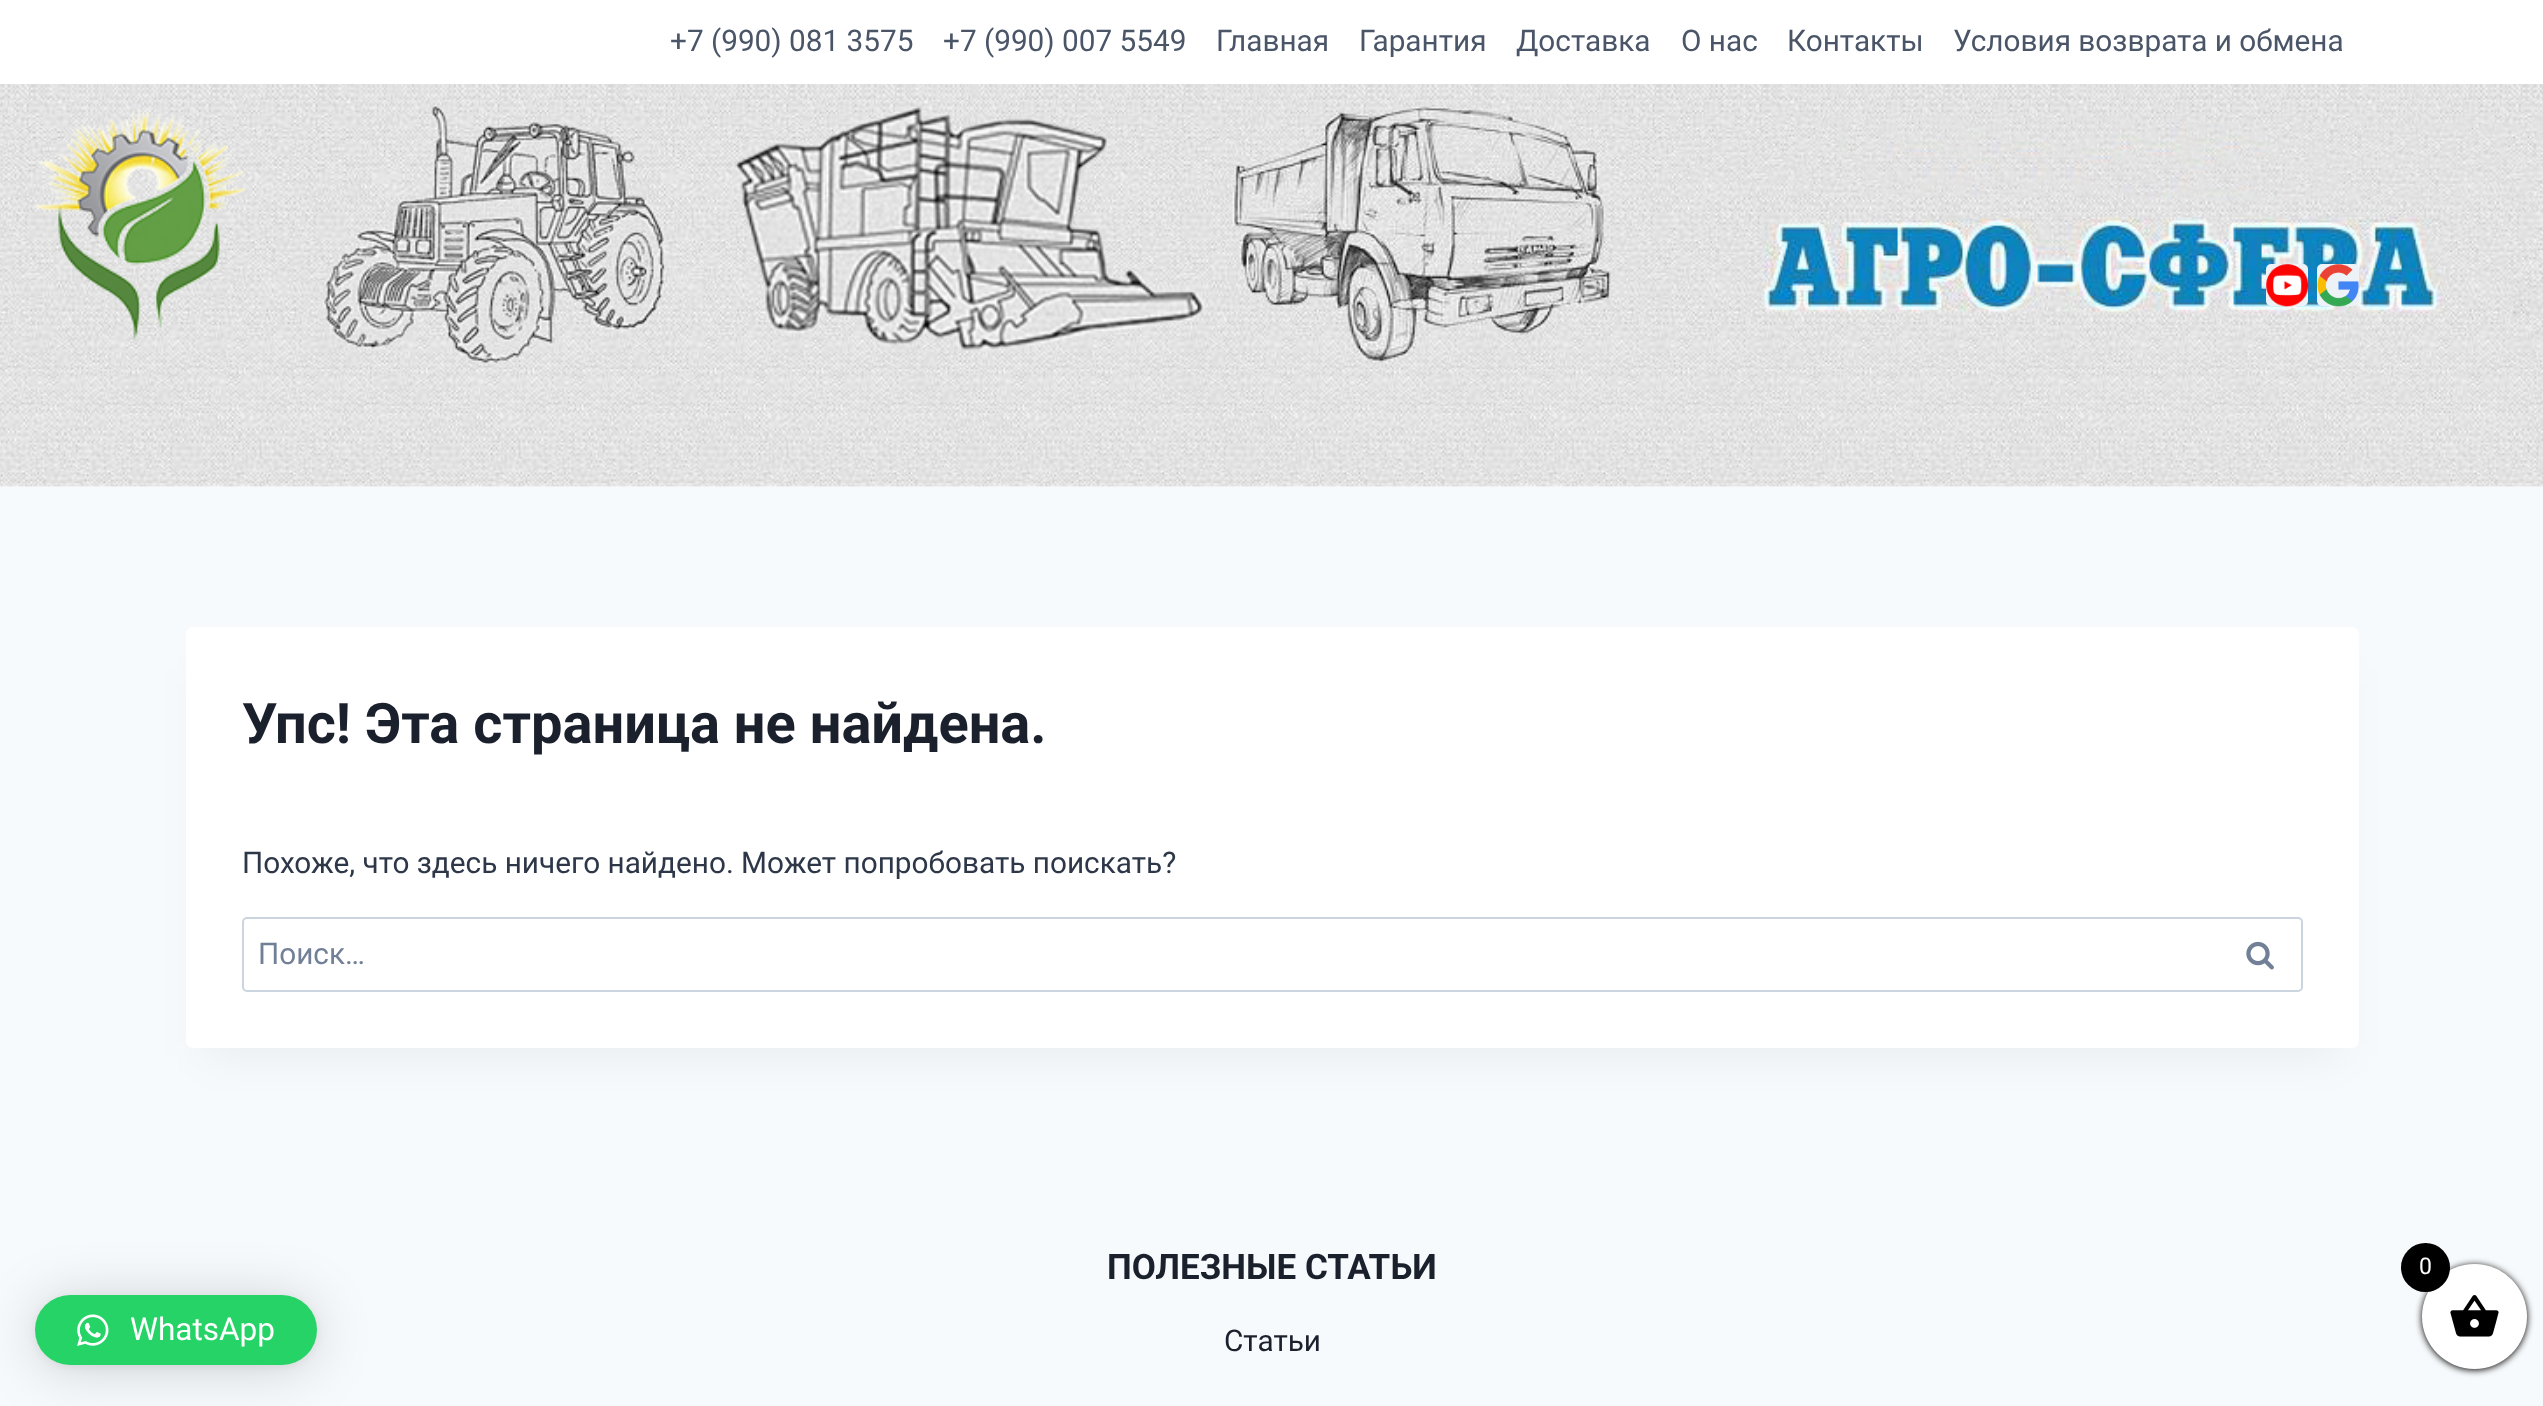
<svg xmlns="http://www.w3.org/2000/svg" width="2543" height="1406">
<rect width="100%" height="100%" fill="#f7fafc"/>
<rect width="2543" height="487" fill="#fff"/>
<text x="670" y="51" style="font-family:Roboto;font-size:29.75px;fill:#4a5568">+7 (990) 081 3575</text>
<text x="943" y="51" style="font-family:Roboto;font-size:29.75px;fill:#4a5568">+7 (990) 007 5549</text>
<text x="1216" y="51" style="font-family:Roboto;font-size:29.75px;fill:#4a5568">Главная</text>
<text x="1359" y="51" style="font-family:Roboto;font-size:29.75px;fill:#4a5568">Гарантия</text>
<text x="1516" y="51" style="font-family:Roboto;font-size:29.75px;fill:#4a5568">Доставка</text>
<text x="1681" y="51" style="font-family:Roboto;font-size:29.75px;fill:#4a5568">О нас</text>
<text x="1787" y="51" style="font-family:Roboto;font-size:29.75px;fill:#4a5568">Контакты</text>
<text x="1953" y="51" style="font-family:Roboto;font-size:29.75px;fill:#4a5568">Условия возврата и обмена</text>
<image x="0" y="84" width="2543" height="403" href="media/1.png"/>
<rect x="2266" y="264" width="42" height="42" rx="5" fill="#edf2f7"/>
<image x="2266" y="264" width="43" height="43" href="media/2.png"/>
<rect x="2317" y="264" width="42" height="42" rx="5" fill="#edf2f7"/>
<image x="2317" y="264" width="42" height="43" href="media/3.png"/>
<rect x="203" y="670" width="2139" height="387" fill="#0000000d" filter="blur(22px)"/>
<rect x="186" y="627" width="2173" height="421" rx="7" fill="#fff"/>
<text x="242" y="743" style="font-family:Roboto;font-size:56px;font-weight:bold;fill:#1a202c">Упс! Эта страница не найдена.</text>
<text x="242" y="873" style="font-family:Roboto;font-size:29.75px;fill:#2d3748">Похоже, что здесь ничего найдено. Может попробовать поискать?</text>
<rect x="243" y="918" width="2059" height="73" rx="4" fill="none" stroke="#cbd5e0" stroke-width="2"/>
<text x="258" y="964" style="font-family:Roboto;font-size:29.75px;fill:#718096">Поиск…</text>
<image x="2246" y="941" width="28" height="29" href="media/4.png"/>
<text x="1107" y="1279" style="font-family:Roboto;font-size:35px;font-weight:bold;fill:#1a202c">ПОЛЕЗНЫЕ СТАТЬИ</text>
<text x="1224" y="1351" style="font-family:Roboto;font-size:29.75px;fill:#1a202c">Статьи</text>
<rect x="2422" y="1265" width="105" height="105" rx="52.5" fill="#000" filter="blur(3.5px)"/>
<circle cx="2474.5" cy="1316.5" r="52.5" fill="#fff"/>
<circle cx="2425.5" cy="1267.5" r="24.5" fill="#000"/>
<text x="2419" y="1274" style="font-family:Roboto;font-size:23px;fill:#fff">0</text>
<image x="2450" y="1295" width="49" height="42" href="media/5.png"/>
<rect x="35" y="1299" width="282" height="70" rx="35" fill="#00000029" filter="blur(28px)"/>
<rect x="35" y="1297" width="282" height="70" rx="35" fill="#0000000f" filter="blur(5px)"/>
<rect x="35" y="1295" width="282" height="70" rx="35" fill="#25d366"/>
<image x="77" y="1314" width="32" height="32" href="media/6.png"/>
<text x="130" y="1340" style="font-family:Roboto;font-size:31.5px;fill:#fff">WhatsApp</text>
</svg>
